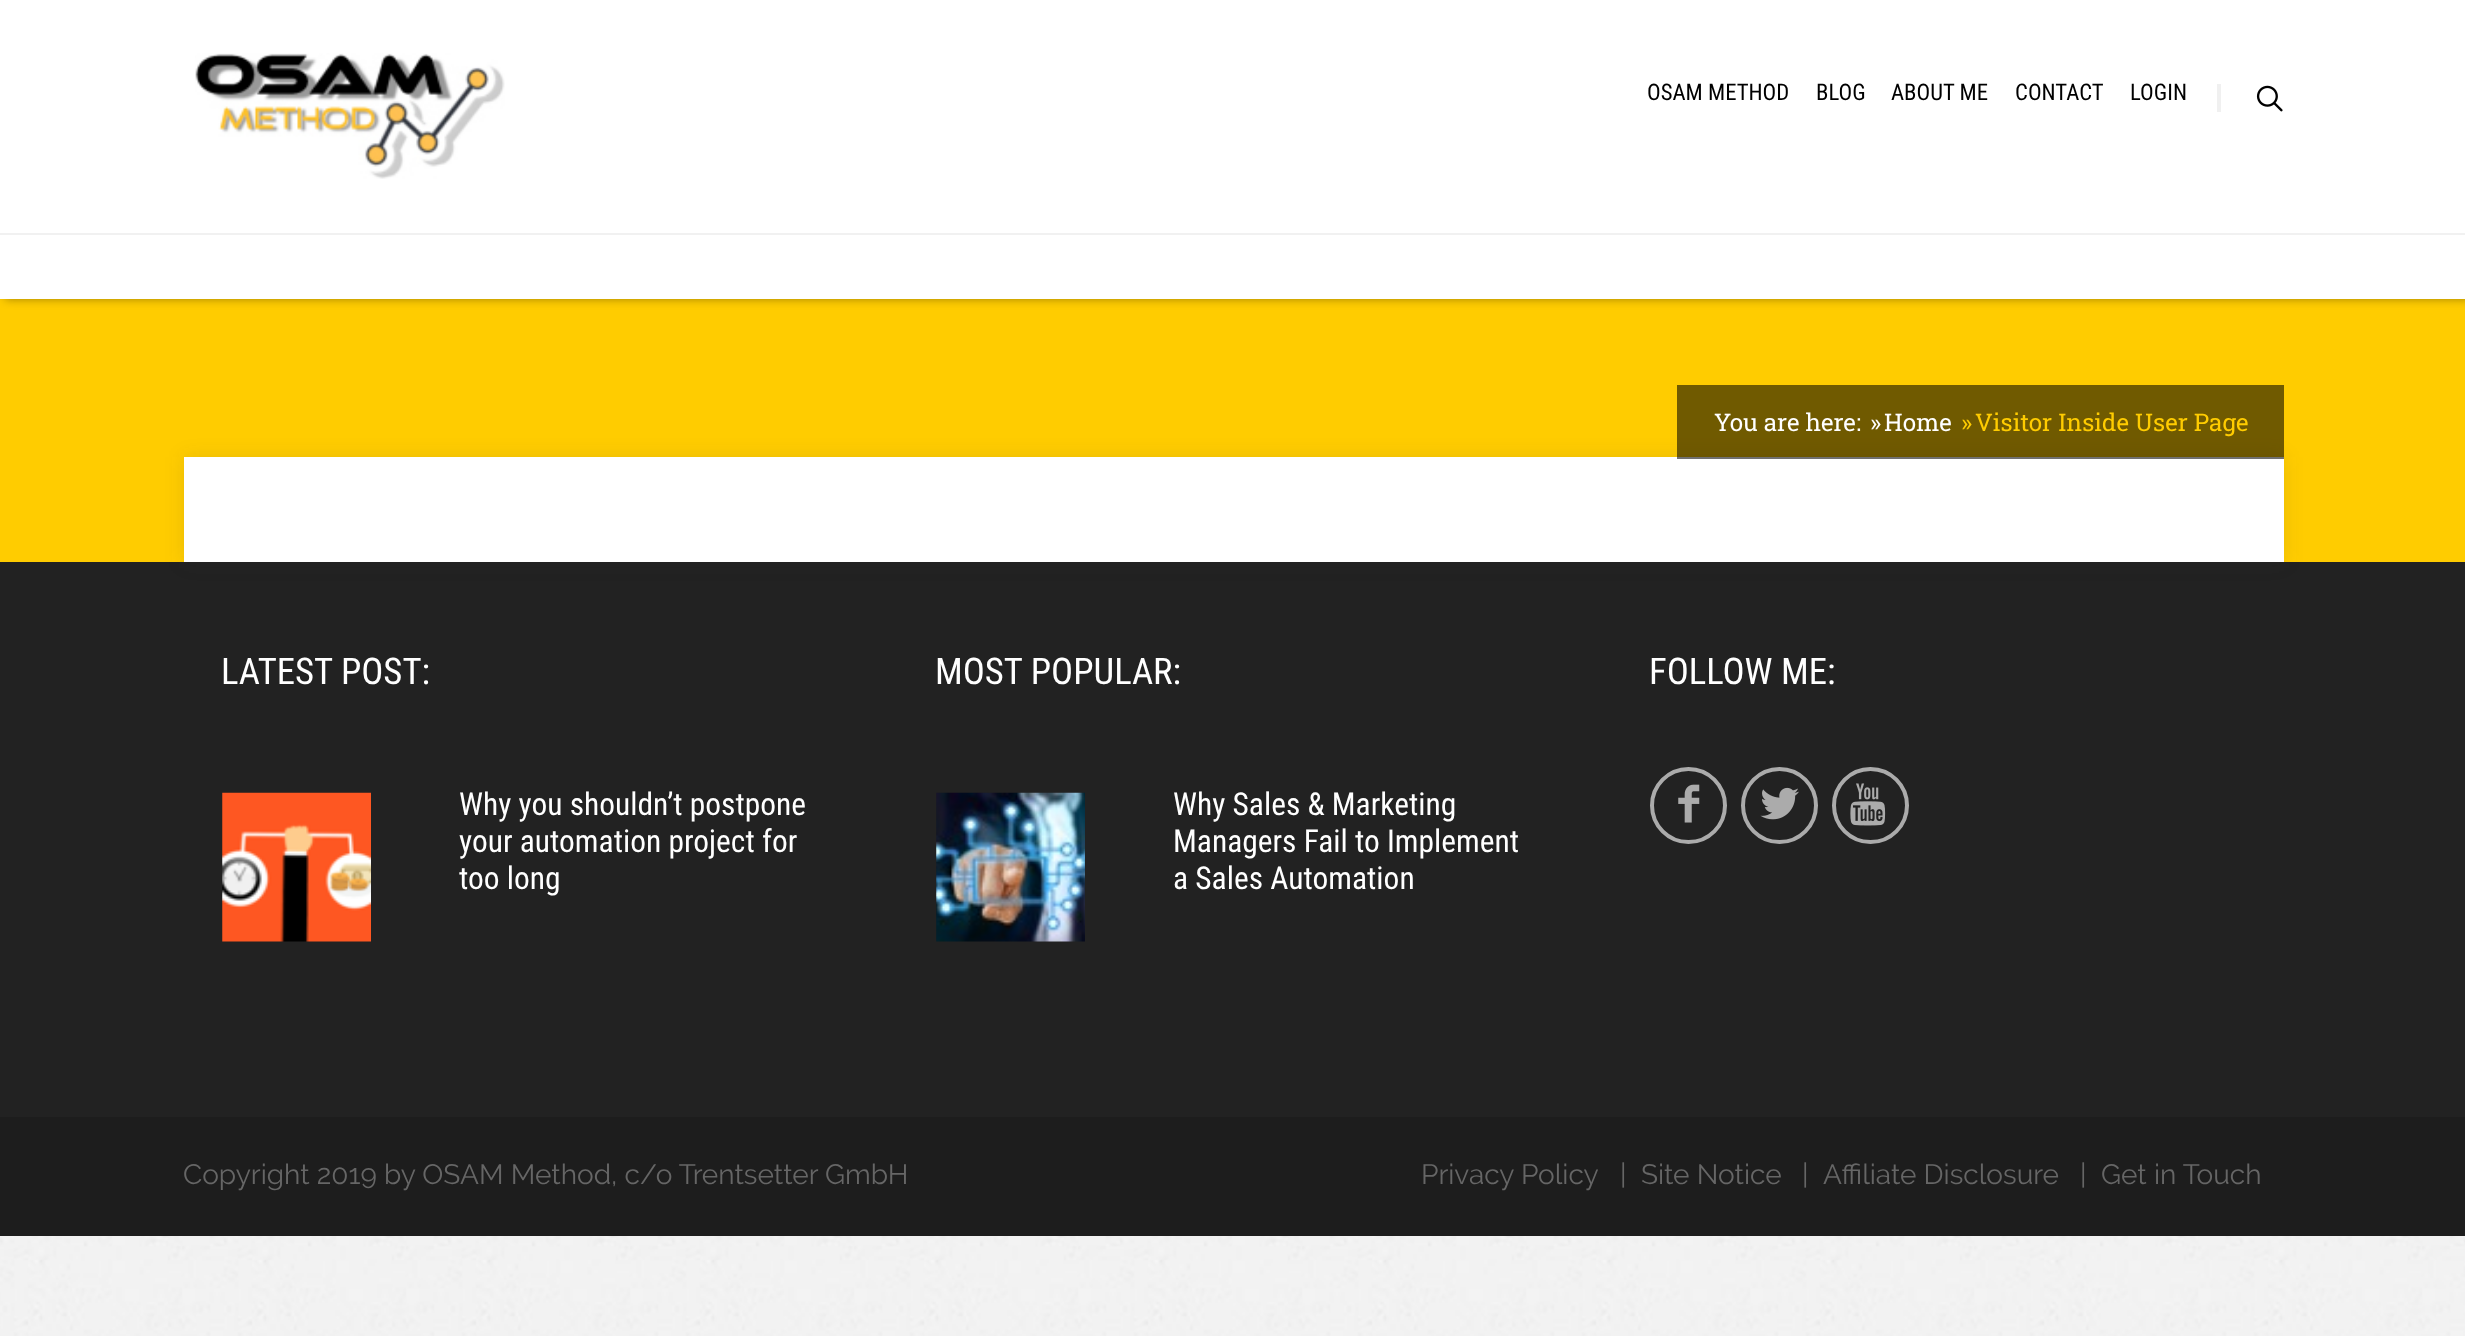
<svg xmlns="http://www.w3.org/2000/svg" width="2465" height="1336">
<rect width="100%" height="100%" fill="#fff"/>
<image x="0" y="1236" width="2465" height="100" href="media/1.png"/>
<rect y="299" width="2465" height="263" fill="#fc0"/>
<rect x="5" width="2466" height="299" fill="#0000005e" filter="blur(5px)"/>
<rect width="2465" height="299" fill="#fff"/>
<rect y="233" width="2465" height="2" fill="#f1f1f1"/>
<image x="195" y="53" width="310" height="126" href="media/2.png"/>
<text x="1647" y="100" style="font-family:Roboto Condensed;font-size:22.75px;fill:#000">OSAM METHOD</text>
<text x="1816" y="100" style="font-family:Roboto Condensed;font-size:22.75px;fill:#000">BLOG</text>
<text x="1891" y="100" style="font-family:Roboto Condensed;font-size:22.75px;fill:#000">ABOUT ME</text>
<text x="2015" y="100" style="font-family:Roboto Condensed;font-size:22.75px;fill:#000">CONTACT</text>
<text x="2130" y="100" style="font-family:Roboto Condensed;font-size:22.75px;fill:#000">LOGIN</text>
<rect x="2217" y="84" width="4" height="28" fill="#f0f0f0"/>
<image x="2256" y="85" width="27" height="27" href="media/3.png"/>
<rect y="562" width="2465" height="555" fill="#222"/>
<rect x="184" y="457" width="2100" height="105" fill="#3232321c" filter="blur(9.5px)"/>
<rect x="184" y="457" width="2100" height="105" fill="#fff"/>
<rect x="1677" y="385" width="607" height="74" fill="#0000008f"/>
<text x="1714" y="431" style="font-family:Roboto Slab;font-size:24.25px;fill:#fff">You are here:</text>
<text x="1870" y="431" style="font-family:Roboto Slab;font-size:24.25px;fill:#fff">»</text>
<text x="1884" y="431" style="font-family:Roboto Slab;font-size:24.25px;fill:#fff">Home</text>
<text x="1961" y="431" style="font-family:Roboto Slab;font-size:24.25px;fill:#fc0">»</text>
<text x="1975" y="431" style="font-family:Roboto Slab;font-size:24.25px;fill:#fc0">Visitor Inside User Page</text>
<rect y="1117" width="2465" height="119" fill="#1d1d1d"/>
<text x="221" y="684" style="font-family:Roboto Condensed;font-size:36.75px;fill:#fff">LATEST POST:</text>
<image x="222" y="792" width="149" height="150" href="media/4.png"/>
<text x="459" y="815" style="font-family:Roboto Condensed;font-size:31.5px;fill:#fff">Why you shouldn’t postpone</text>
<text x="459" y="852" style="font-family:Roboto Condensed;font-size:31.5px;fill:#fff">your automation project for</text>
<text x="459" y="889" style="font-family:Roboto Condensed;font-size:31.5px;fill:#fff">too long</text>
<text x="935" y="684" style="font-family:Roboto Condensed;font-size:36.75px;fill:#fff">MOST POPULAR:</text>
<image x="936" y="792" width="149" height="150" href="media/5.png"/>
<text x="1173" y="815" style="font-family:Roboto Condensed;font-size:31.5px;fill:#fff">Why Sales &amp; Marketing</text>
<text x="1173" y="852" style="font-family:Roboto Condensed;font-size:31.5px;fill:#fff">Managers Fail to Implement</text>
<text x="1173" y="889" style="font-family:Roboto Condensed;font-size:31.5px;fill:#fff">a Sales Automation</text>
<text x="1649" y="684" style="font-family:Roboto Condensed;font-size:36.75px;fill:#fff">FOLLOW ME:</text>
<circle cx="1688.5" cy="805.5" r="36.5" fill="none" stroke="#ababab" stroke-width="4"/>
<image x="1678" y="784" width="22" height="39" href="media/6.png"/>
<circle cx="1779.5" cy="805.5" r="36.5" fill="none" stroke="#ababab" stroke-width="4"/>
<image x="1760" y="787" width="39" height="33" href="media/7.png"/>
<circle cx="1870.5" cy="805.5" r="36.5" fill="none" stroke="#ababab" stroke-width="4"/>
<image x="1850" y="783" width="36" height="43" href="media/8.png"/>
<text x="183" y="1184" style="font-family:Raleway;font-size:28px;fill:#666">Copyright 2019 by OSAM Method, c/o Trentsetter GmbH</text>
<text x="1421" y="1184" style="font-family:Raleway;font-size:28px;fill:#666">Privacy Policy</text>
<text x="1620" y="1184" style="font-family:Raleway;font-size:28px;fill:#666">|</text>
<text x="1641" y="1184" style="font-family:Raleway;font-size:28px;fill:#666">Site Notice</text>
<text x="1802" y="1184" style="font-family:Raleway;font-size:28px;fill:#666">|</text>
<text x="1823" y="1184" style="font-family:Raleway;font-size:28px;fill:#666">Affiliate Disclosure</text>
<text x="2080" y="1184" style="font-family:Raleway;font-size:28px;fill:#666">|</text>
<text x="2101" y="1184" style="font-family:Raleway;font-size:28px;fill:#666">Get in Touch</text>
</svg>
